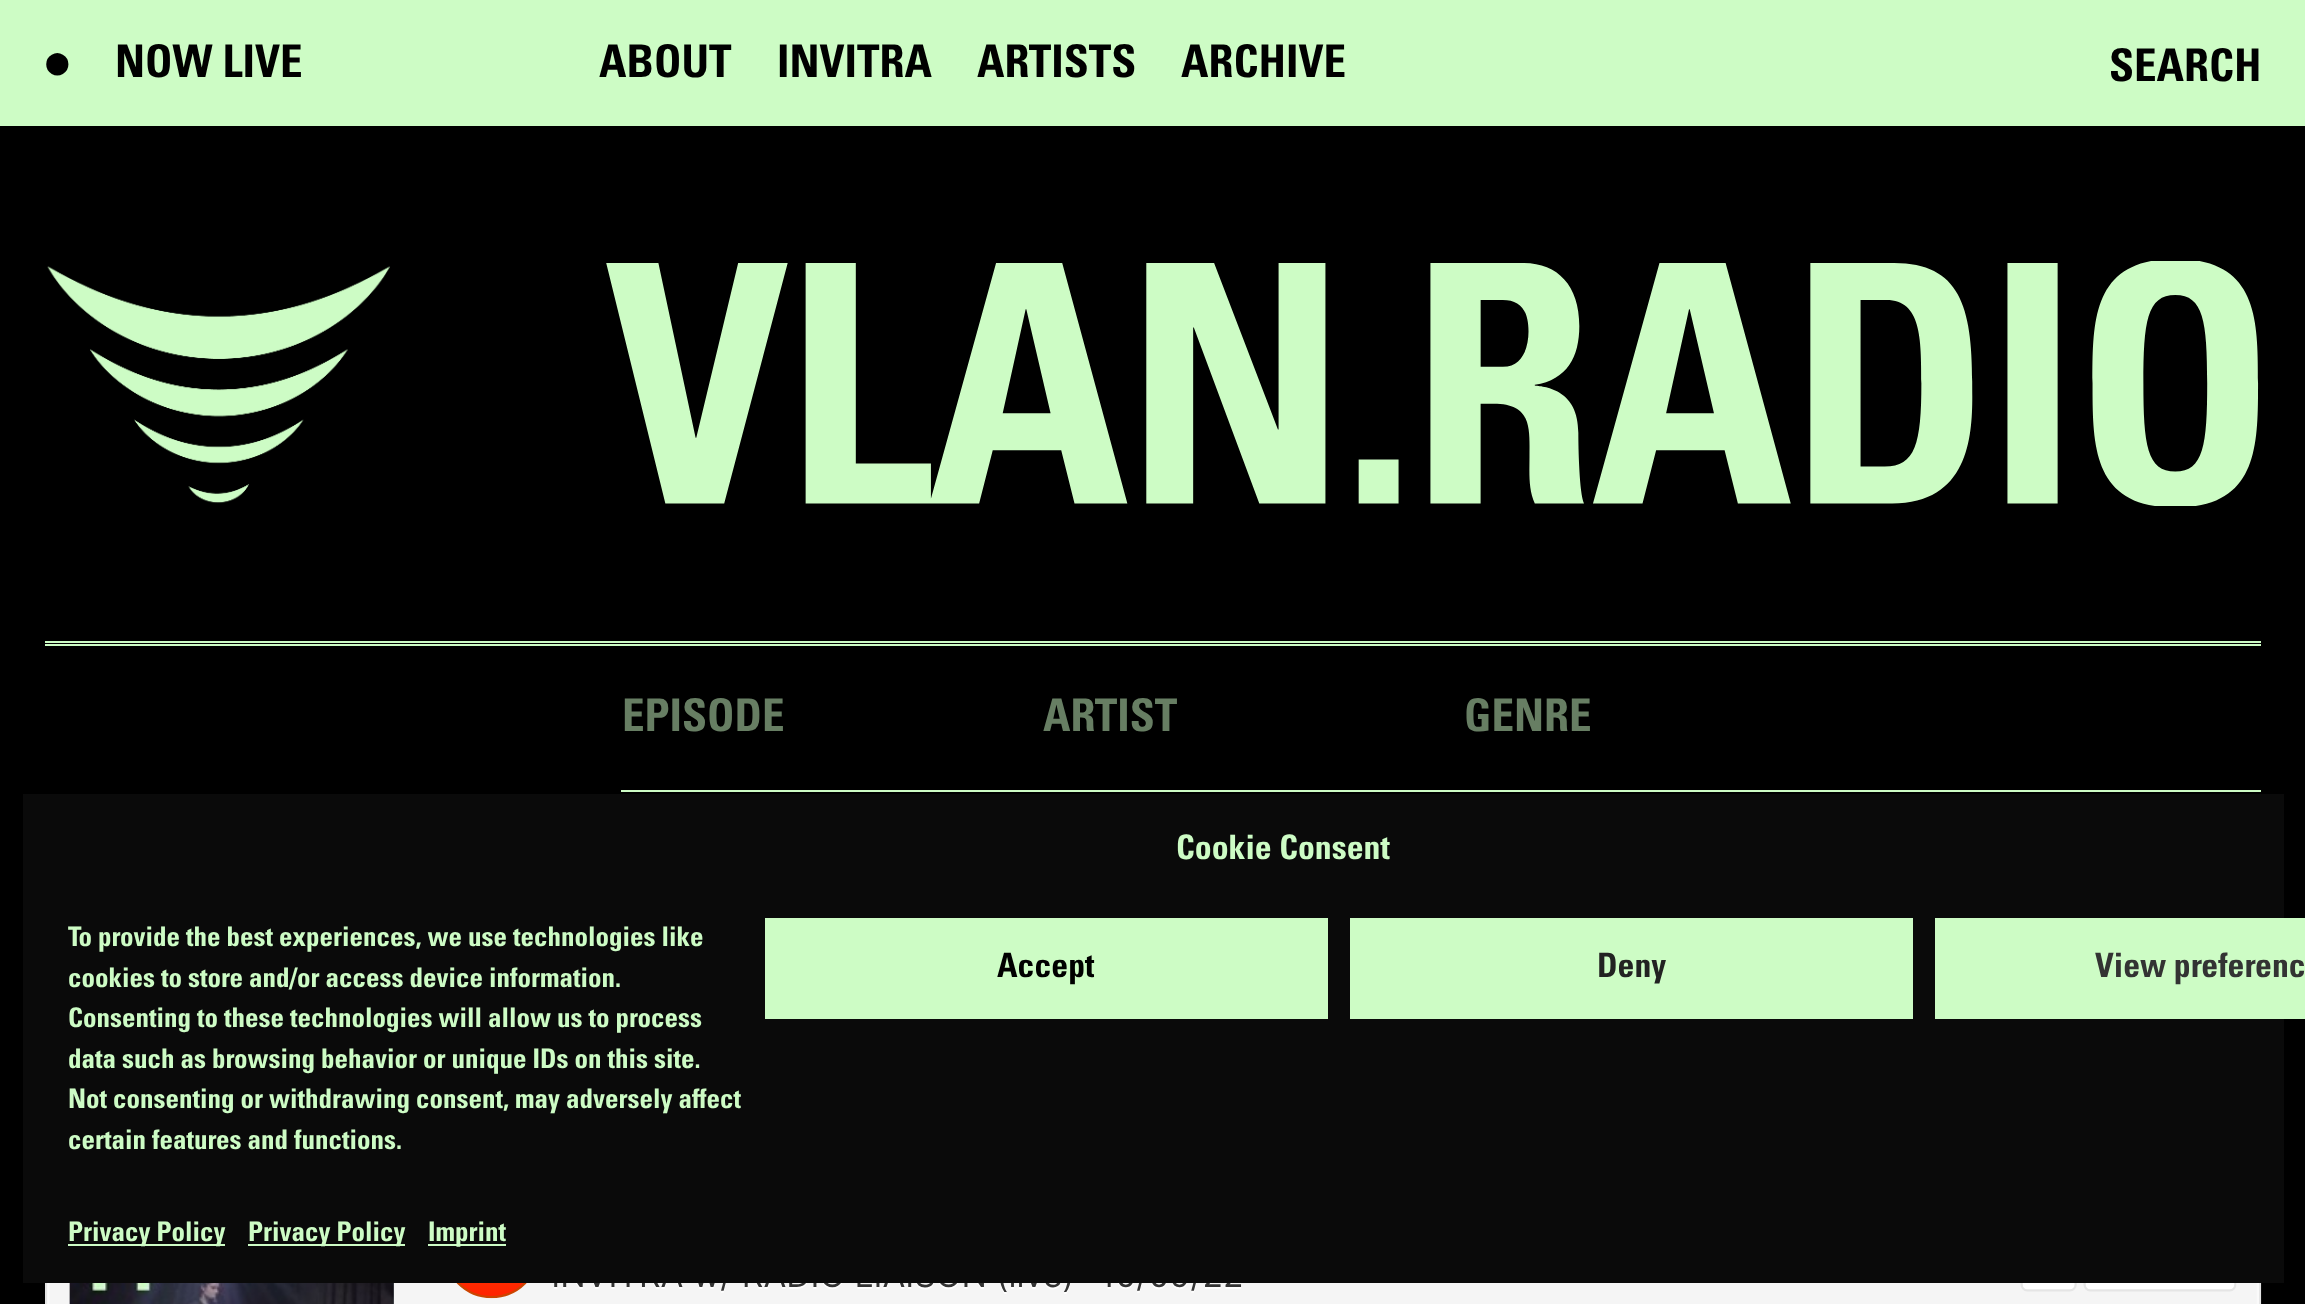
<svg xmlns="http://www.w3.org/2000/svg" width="2305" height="1304">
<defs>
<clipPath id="clip1"><rect x="68" y="918" width="675" height="254"/></clipPath>
</defs>
<rect width="100%" height="100%" fill="#000"/>
<rect width="2305" height="126" fill="#cdfcc5"/>
<text x="45" y="70" style="font-family:DejaVu Sans;font-size:22px;fill:#000">⬤</text>
<text x="115" y="77" style="font-family:Univers;font-size:45px;font-weight:bold;fill:#000">NOW LIVE</text>
<text x="599" y="77" style="font-family:Univers;font-size:45px;font-weight:bold;fill:#000">ABOUT</text>
<text x="777" y="77" style="font-family:Univers;font-size:45px;font-weight:bold;fill:#000">INVITRA</text>
<text x="977" y="77" style="font-family:Univers;font-size:45px;font-weight:bold;fill:#000">ARTISTS</text>
<text x="1181" y="77" style="font-family:Univers;font-size:45px;font-weight:bold;fill:#000">ARCHIVE</text>
<rect x="45" y="641" width="2216" height="2" fill="#cdfcc5"/>
<image x="47" y="261" width="2212" height="245" href="media/1.png"/>
<text x="2109" y="81" style="font-family:Univers;font-size:45px;font-weight:bold;fill:#000">SEARCH</text>
<rect x="45" y="644" width="2216" height="2" fill="#cdfcc5"/>
<rect x="621" y="790" width="1640" height="2" fill="#cdfcc5"/>
<text x="622" y="731" style="font-family:Univers;font-size:45px;font-weight:bold;fill:#677e63">EPISODE</text>
<text x="1043" y="731" style="font-family:Univers;font-size:45px;font-weight:bold;fill:#677e63">ARTIST</text>
<text x="1464" y="731" style="font-family:Univers;font-size:45px;font-weight:bold;fill:#677e63">GENRE</text>
<image x="45" y="1283" width="2217" height="21" href="media/2.png"/>
<rect x="23" y="794" width="2261" height="489" fill="#0a0a0a"/>
<text x="1176" y="859" style="font-family:Univers;font-size:33.75px;font-weight:bold;fill:#cdfcc5">Cookie Consent</text>
<g clip-path="url(#clip1)">
<text x="68" y="946" style="font-family:Univers;font-size:27px;font-weight:bold;fill:#cdfcc5">To provide the best experiences, we use technologies like</text>
</g>
<text x="68" y="987" style="font-family:Univers;font-size:27px;font-weight:bold;fill:#cdfcc5">cookies to store and/or access device information.</text>
<text x="68" y="1027" style="font-family:Univers;font-size:27px;font-weight:bold;fill:#cdfcc5">Consenting to these technologies will allow us to process</text>
<text x="68" y="1068" style="font-family:Univers;font-size:27px;font-weight:bold;fill:#cdfcc5">data such as browsing behavior or unique IDs on this site.</text>
<text x="68" y="1108" style="font-family:Univers;font-size:27px;font-weight:bold;fill:#cdfcc5">Not consenting or withdrawing consent, may adversely affect</text>
<text x="68" y="1149" style="font-family:Univers;font-size:27px;font-weight:bold;fill:#cdfcc5">certain features and functions.</text>
<rect x="765" y="918" width="563" height="101" fill="#cdfcc5"/>
<text x="997" y="977" style="font-family:Univers;font-size:33.75px;font-weight:bold;fill:#000">Accept</text>
<rect x="1350" y="918" width="563" height="101" fill="#cdfcc5"/>
<text x="1597" y="977" style="font-family:Univers;font-size:33.75px;font-weight:bold;fill:#222">Deny</text>
<rect x="1935" y="918" width="370" height="101" fill="#cdfcc5"/>
<text x="2095" y="977" style="font-family:Univers;font-size:33.75px;font-weight:bold;fill:#333">View preferenc</text>
<rect x="68" y="1244" width="157" height="2" fill="#cdfcc5"/>
<text x="68" y="1241" style="font-family:Univers;font-size:27px;font-weight:bold;fill:#cdfcc5">Privacy Policy</text>
<rect x="248" y="1244" width="157" height="2" fill="#cdfcc5"/>
<text x="248" y="1241" style="font-family:Univers;font-size:27px;font-weight:bold;fill:#cdfcc5">Privacy Policy</text>
<rect x="428" y="1244" width="78" height="2" fill="#cdfcc5"/>
<text x="428" y="1241" style="font-family:Univers;font-size:27px;font-weight:bold;fill:#cdfcc5">Imprint</text>
</svg>
